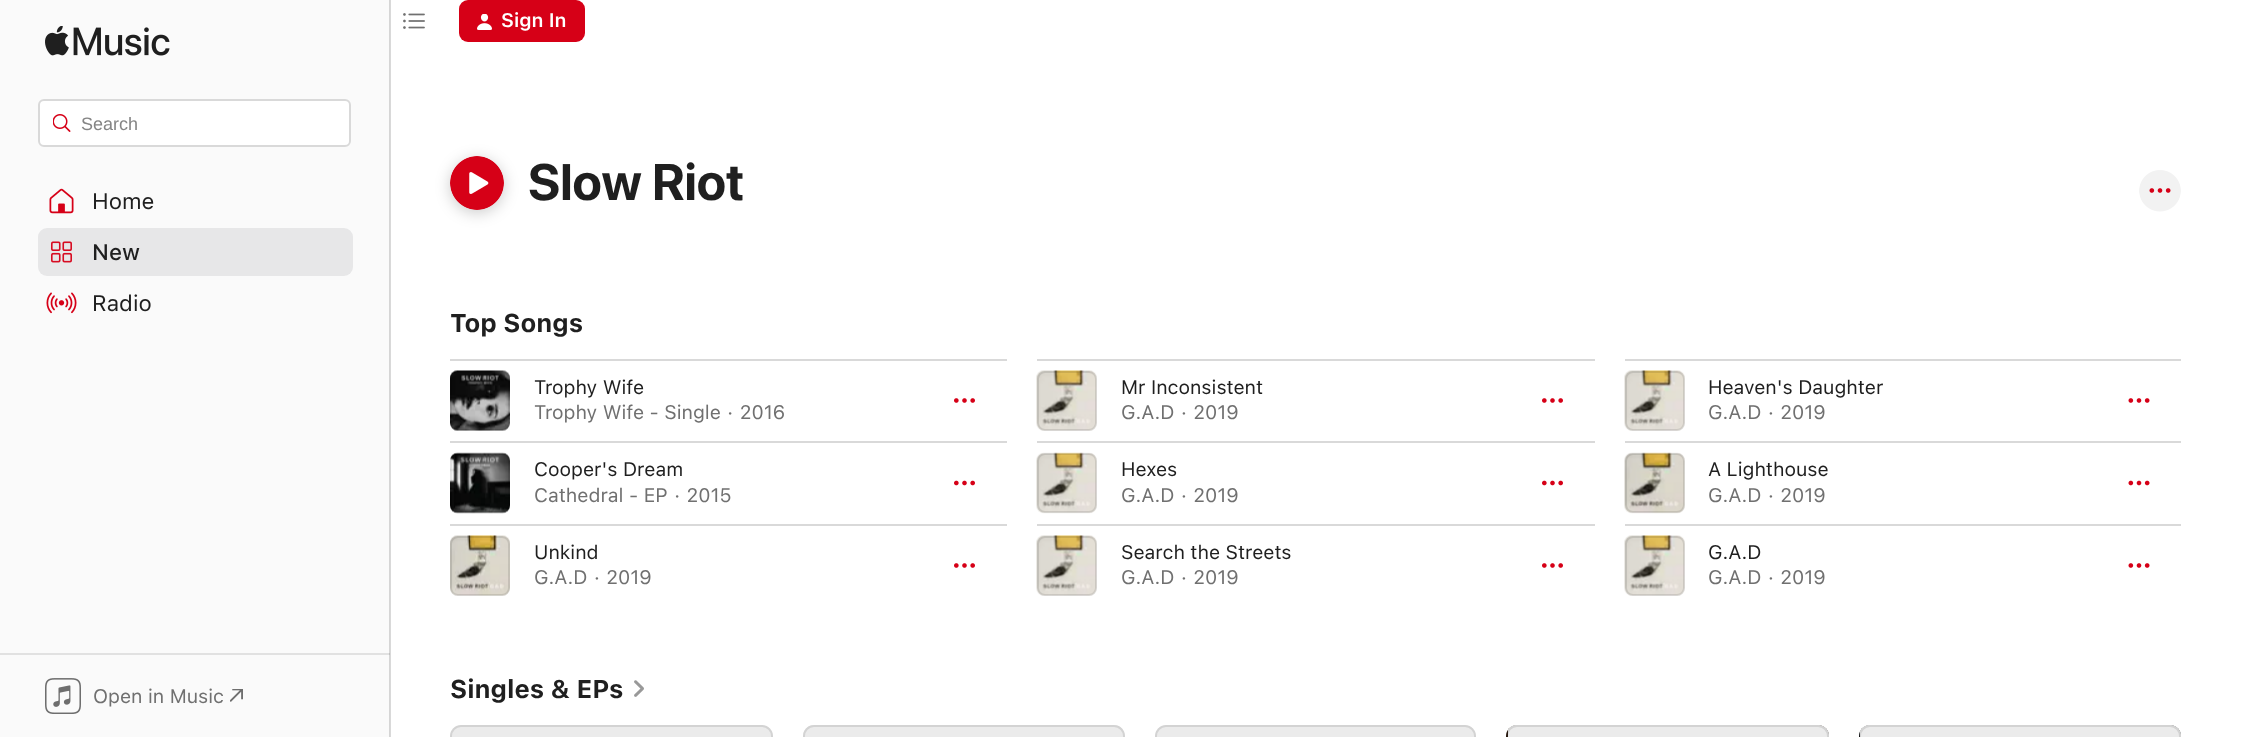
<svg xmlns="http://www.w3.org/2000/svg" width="2241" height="737">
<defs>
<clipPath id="clip1"><rect x="1506" y="725" width="323" height="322" rx="11"/></clipPath>
<clipPath id="clip2"><rect x="1859" y="725" width="322" height="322" rx="11"/></clipPath>
</defs>
<rect width="100%" height="100%" fill="#fff"/>
<rect x="390" width="1" height="737" fill="#d9d9d9"/>
<image x="403" y="13" width="22" height="16" href="media/1.png"/>
<rect x="459" width="126" height="42" rx="9" fill="#d60017"/>
<image x="477" y="14" width="15" height="16" href="media/2.png"/>
<text x="501" y="27" style="font-family:SF;font-size:19.5px;font-weight:600;fill:#fff">Sign In</text>
<rect width="389" height="737" fill="#fafafa"/>
<rect y="653" width="390" height="2" fill="#e1e1e1"/>
<rect x="389" width="1" height="737" fill="#d5d5d5"/>
<rect x="389" y="653" width="1" height="2" fill="#c0c0c0"/>
<image x="45" y="26" width="125" height="30" href="media/3.png"/>
<rect x="39" y="100" width="311" height="46" rx="5" fill="#fff" stroke="#d9d9d9" stroke-width="2"/>
<image x="53" y="114" width="18" height="18" href="media/4.png"/>
<text x="81" y="130" style="font-family:Liberation Sans;font-size:18px;fill:#858585">Search</text>
<image x="49" y="188" width="25" height="26" href="media/5.png"/>
<text x="92" y="209" style="font-family:SF;font-size:22.5px;fill:#1f1f1f">Home</text>
<rect x="38" y="228" width="315" height="48" rx="9" fill="#e7e7e8"/>
<image x="51" y="241" width="21" height="22" href="media/6.png"/>
<text x="92" y="260" style="font-family:SF;font-size:22.5px;font-weight:500;fill:#1f1f1f">New</text>
<image x="46" y="292" width="31" height="22" href="media/7.png"/>
<text x="92" y="311" style="font-family:SF;font-size:22.5px;fill:#1f1f1f">Radio</text>
<image x="45" y="678" width="36" height="36" href="media/8.png"/>
<text x="93" y="703" style="font-family:SF;font-size:19.5px;fill:#707070">Open in Music</text>
<image x="230" y="689" width="13" height="13" href="media/9.png"/>
<rect x="450" y="159" width="54" height="54" rx="27" fill="#00000033" filter="blur(7.5px)"/>
<image x="450" y="156" width="54" height="54" href="media/10.png"/>
<text x="528" y="200" style="font-family:'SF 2';font-size:51px;font-weight:bold;fill:#1f1f1f">Slow Riot</text>
<image x="2139" y="170" width="42" height="42" href="media/11.png"/>
<text x="450" y="332" style="font-family:SF;font-size:25.5px;font-weight:bold;fill:#1f1f1f">Top Songs</text>
<rect x="450" y="359" width="557" height="2" fill="#d9d9d9"/>
<image x="450" y="370" width="60" height="61" href="media/12.png"/>
<rect x="451" y="372" width="58" height="58" rx="7" fill="none" stroke="#0000001a" stroke-width="2"/>
<text x="534" y="394" style="font-family:SF;font-size:19.5px;fill:#1f1f1f">Trophy Wife</text>
<text x="534" y="419" style="font-family:SF;font-size:19.5px;fill:#707070">Trophy Wife - Single · 2016</text>
<image x="954" y="398" width="21" height="5" href="media/13.png"/>
<rect x="1037" y="359" width="558" height="2" fill="#d9d9d9"/>
<image x="1036" y="370" width="61" height="61" href="media/14.png"/>
<rect x="1038" y="372" width="58" height="58" rx="7" fill="none" stroke="#0000001a" stroke-width="2"/>
<text x="1121" y="394" style="font-family:SF;font-size:19.5px;fill:#1f1f1f">Mr Inconsistent</text>
<text x="1121" y="419" style="font-family:SF;font-size:19.5px;fill:#707070">G.A.D · 2019</text>
<image x="1542" y="398" width="21" height="5" href="media/13.png"/>
<rect x="1625" y="359" width="556" height="2" fill="#d9d9d9"/>
<image x="1624" y="370" width="61" height="61" href="media/14.png"/>
<rect x="1626" y="372" width="58" height="58" rx="7" fill="none" stroke="#0000001a" stroke-width="2"/>
<text x="1708" y="394" style="font-family:SF;font-size:19.5px;fill:#1f1f1f">Heaven's Daughter</text>
<text x="1708" y="419" style="font-family:SF;font-size:19.5px;fill:#707070">G.A.D · 2019</text>
<image x="2128" y="398" width="22" height="5" href="media/15.png"/>
<rect x="450" y="441" width="557" height="2" fill="#d9d9d9"/>
<image x="450" y="452" width="60" height="62" href="media/16.png"/>
<rect x="451" y="454" width="58" height="58" rx="7" fill="none" stroke="#0000001a" stroke-width="2"/>
<text x="534" y="476" style="font-family:SF;font-size:19.5px;fill:#1f1f1f">Cooper's Dream</text>
<text x="534" y="502" style="font-family:SF;font-size:19.5px;fill:#707070">Cathedral - EP · 2015</text>
<image x="954" y="480" width="21" height="6" href="media/17.png"/>
<rect x="1037" y="441" width="558" height="2" fill="#d9d9d9"/>
<image x="1036" y="452" width="61" height="62" href="media/18.png"/>
<rect x="1038" y="454" width="58" height="58" rx="7" fill="none" stroke="#0000001a" stroke-width="2"/>
<text x="1121" y="476" style="font-family:SF;font-size:19.5px;fill:#1f1f1f">Hexes</text>
<text x="1121" y="502" style="font-family:SF;font-size:19.5px;fill:#707070">G.A.D · 2019</text>
<image x="1542" y="480" width="21" height="6" href="media/17.png"/>
<rect x="1625" y="441" width="556" height="2" fill="#d9d9d9"/>
<image x="1624" y="452" width="61" height="62" href="media/19.png"/>
<rect x="1626" y="454" width="58" height="58" rx="7" fill="none" stroke="#0000001a" stroke-width="2"/>
<text x="1708" y="476" style="font-family:SF;font-size:19.5px;fill:#1f1f1f">A Lighthouse</text>
<text x="1708" y="502" style="font-family:SF;font-size:19.5px;fill:#707070">G.A.D · 2019</text>
<image x="2128" y="480" width="22" height="6" href="media/20.png"/>
<rect x="450" y="524" width="557" height="2" fill="#d9d9d9"/>
<image x="450" y="535" width="60" height="61" href="media/21.png"/>
<rect x="451" y="537" width="58" height="58" rx="7" fill="none" stroke="#0000001a" stroke-width="2"/>
<text x="534" y="559" style="font-family:SF;font-size:19.5px;fill:#1f1f1f">Unkind</text>
<text x="534" y="584" style="font-family:SF;font-size:19.5px;fill:#707070">G.A.D · 2019</text>
<image x="954" y="563" width="21" height="5" href="media/13.png"/>
<rect x="1037" y="524" width="558" height="2" fill="#d9d9d9"/>
<image x="1036" y="535" width="61" height="61" href="media/22.png"/>
<rect x="1038" y="537" width="58" height="58" rx="7" fill="none" stroke="#0000001a" stroke-width="2"/>
<text x="1121" y="559" style="font-family:SF;font-size:19.5px;fill:#1f1f1f">Search the Streets</text>
<text x="1121" y="584" style="font-family:SF;font-size:19.5px;fill:#707070">G.A.D · 2019</text>
<image x="1542" y="563" width="21" height="5" href="media/13.png"/>
<rect x="1625" y="524" width="556" height="2" fill="#d9d9d9"/>
<image x="1624" y="535" width="61" height="61" href="media/22.png"/>
<rect x="1626" y="537" width="58" height="58" rx="7" fill="none" stroke="#0000001a" stroke-width="2"/>
<text x="1708" y="559" style="font-family:SF;font-size:19.5px;fill:#1f1f1f">G.A.D</text>
<text x="1708" y="584" style="font-family:SF;font-size:19.5px;fill:#707070">G.A.D · 2019</text>
<image x="2128" y="563" width="22" height="5" href="media/15.png"/>
<text x="450" y="698" style="font-family:SF;font-size:25.5px;font-weight:bold;fill:#1f1f1f">Singles &amp; EPs</text>
<image x="634" y="680" width="10" height="17" href="media/23.png"/>
<path d="M461 725h301c6 0 11 5 11 11v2h-323v-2c0-6 5-11 11-11z" fill="#ebebeb"/>
<rect x="451" y="726" width="321" height="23" rx="10" fill="none" stroke="#0000001a" stroke-width="2"/>
<path d="M814 725h300c6 0 11 5 11 11v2h-322v-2c0-6 5-11 11-11z" fill="#ebebeb"/>
<image x="803" y="725" width="320" height="9" href="media/24.png"/>
<rect x="804" y="726" width="320" height="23" rx="10" fill="none" stroke="#0000001a" stroke-width="2"/>
<path d="M1166 725h299c6 0 11 5 11 11v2h-321v-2c0-6 5-11 11-11z" fill="#ebebeb"/>
<rect x="1156" y="726" width="319" height="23" rx="10" fill="none" stroke="#0000001a" stroke-width="2"/>
<path d="M1517 725h301c6 0 11 5 11 11v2h-323v-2c0-6 5-11 11-11z" fill="#2c1c12"/>
<g clip-path="url(#clip1)">
<path d="M1508 725h310c6 0 11 5 11 11v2h-321z" fill="#ebebeb"/>
</g>
<image x="1508" y="725" width="321" height="11" href="media/25.png"/>
<rect x="1507" y="726" width="321" height="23" rx="10" fill="none" stroke="#0000001a" stroke-width="2"/>
<path d="M1870 725h300c6 0 11 5 11 11v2h-322v-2c0-6 5-11 11-11z" fill="#171819"/>
<g clip-path="url(#clip2)">
<path d="M1860 725h310c6 0 11 5 11 11v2h-321z" fill="#ebebeb"/>
</g>
<image x="1860" y="725" width="321" height="11" href="media/26.png"/>
<rect x="1860" y="726" width="320" height="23" rx="10" fill="none" stroke="#0000001a" stroke-width="2"/>
</svg>
